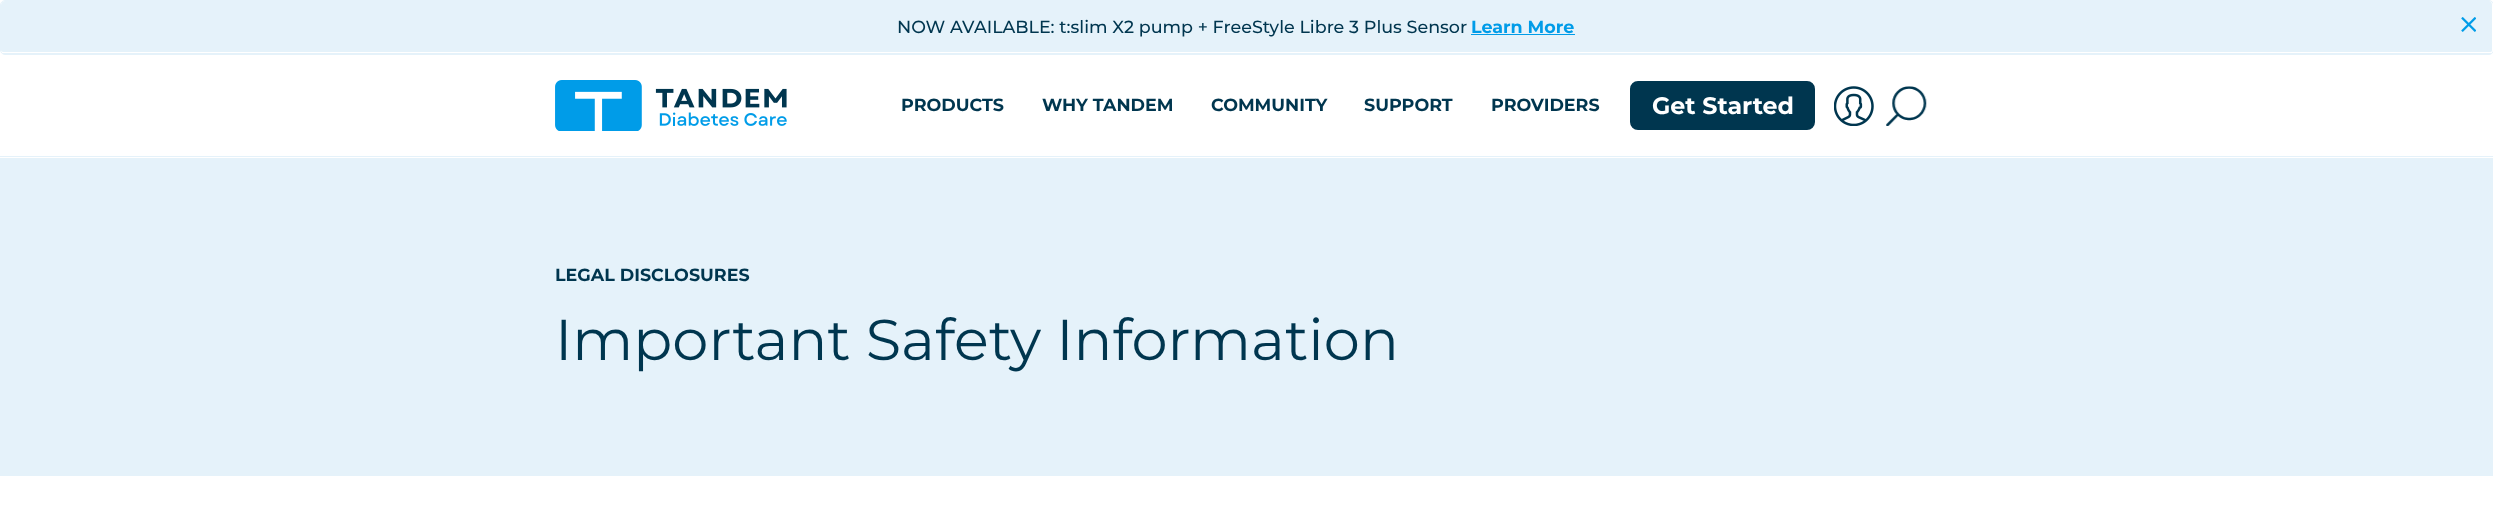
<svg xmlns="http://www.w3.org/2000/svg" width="2493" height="513">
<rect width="100%" height="100%" fill="#fff"/>
<path d="M5 1h2484c2 0 3 2 3 4v45c0 2-1 2-3 2h-2484c-2 0-4 0-4-2v-45c0-2 2-4 4-4z" fill="#e5f2fa"/>
<rect x="0.5" y="0.5" width="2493" height="54" rx="4.5" fill="none" stroke="#e5f2fa"/>
<rect x="3" y="53" width="2488" height="1" fill="#e5f2fa"/>
<text x="897" y="33" style="font-family:Montserrat;font-size:17.5px;font-weight:500;fill:#00364f">NOW AVAILABLE: t:slim X2 pump + FreeStyle Libre 3 Plus Sensor</text>
<text x="1471" y="33" style="font-family:Montserrat;font-size:17.5px;font-weight:bold;fill:#009ce8">Learn More</text>
<rect x="1471" y="34" width="104" height="1" fill="#009ce8"/>
<image x="2461" y="17" width="15" height="15" href="media/1.png"/>
<rect y="156" width="2493" height="1" fill="#e5f2fa"/>
<image x="555" y="80" width="232" height="51" href="media/2.png"/>
<text x="901" y="111" style="font-family:Montserrat;font-size:17.5px;font-weight:bold;fill:#00364f">PRODUCTS</text>
<text x="1042" y="111" style="font-family:Montserrat;font-size:17.5px;font-weight:bold;fill:#00364f">WHY TANDEM</text>
<text x="1211" y="111" style="font-family:Montserrat;font-size:17.5px;font-weight:bold;fill:#00364f">COMMUNITY</text>
<text x="1364" y="111" style="font-family:Montserrat;font-size:17.5px;font-weight:bold;fill:#00364f">SUPPORT</text>
<text x="1491" y="111" style="font-family:Montserrat;font-size:17.5px;font-weight:bold;fill:#00364f">PROVIDERS</text>
<rect x="1631.5" y="82.5" width="182" height="46" rx="6.5" fill="#00364f" stroke="#00364f" stroke-width="3"/>
<text x="1652" y="114" style="font-family:Montserrat;font-size:23.75px;font-weight:bold;fill:#fff">Get Started</text>
<image x="1834" y="86" width="40" height="40" href="media/3.png"/>
<image x="1886" y="86" width="41" height="40" href="media/4.png"/>
<rect y="158" width="2493" height="318" fill="#e5f2fa"/>
<text x="555" y="281" style="font-family:Montserrat;font-size:17.5px;font-weight:bold;fill:#00364f">LEGAL DISCLOSURES</text>
<text x="555" y="360" style="font-family:Montserrat;font-size:57.5px;fill:#00364f">Important Safety Information</text>
</svg>
